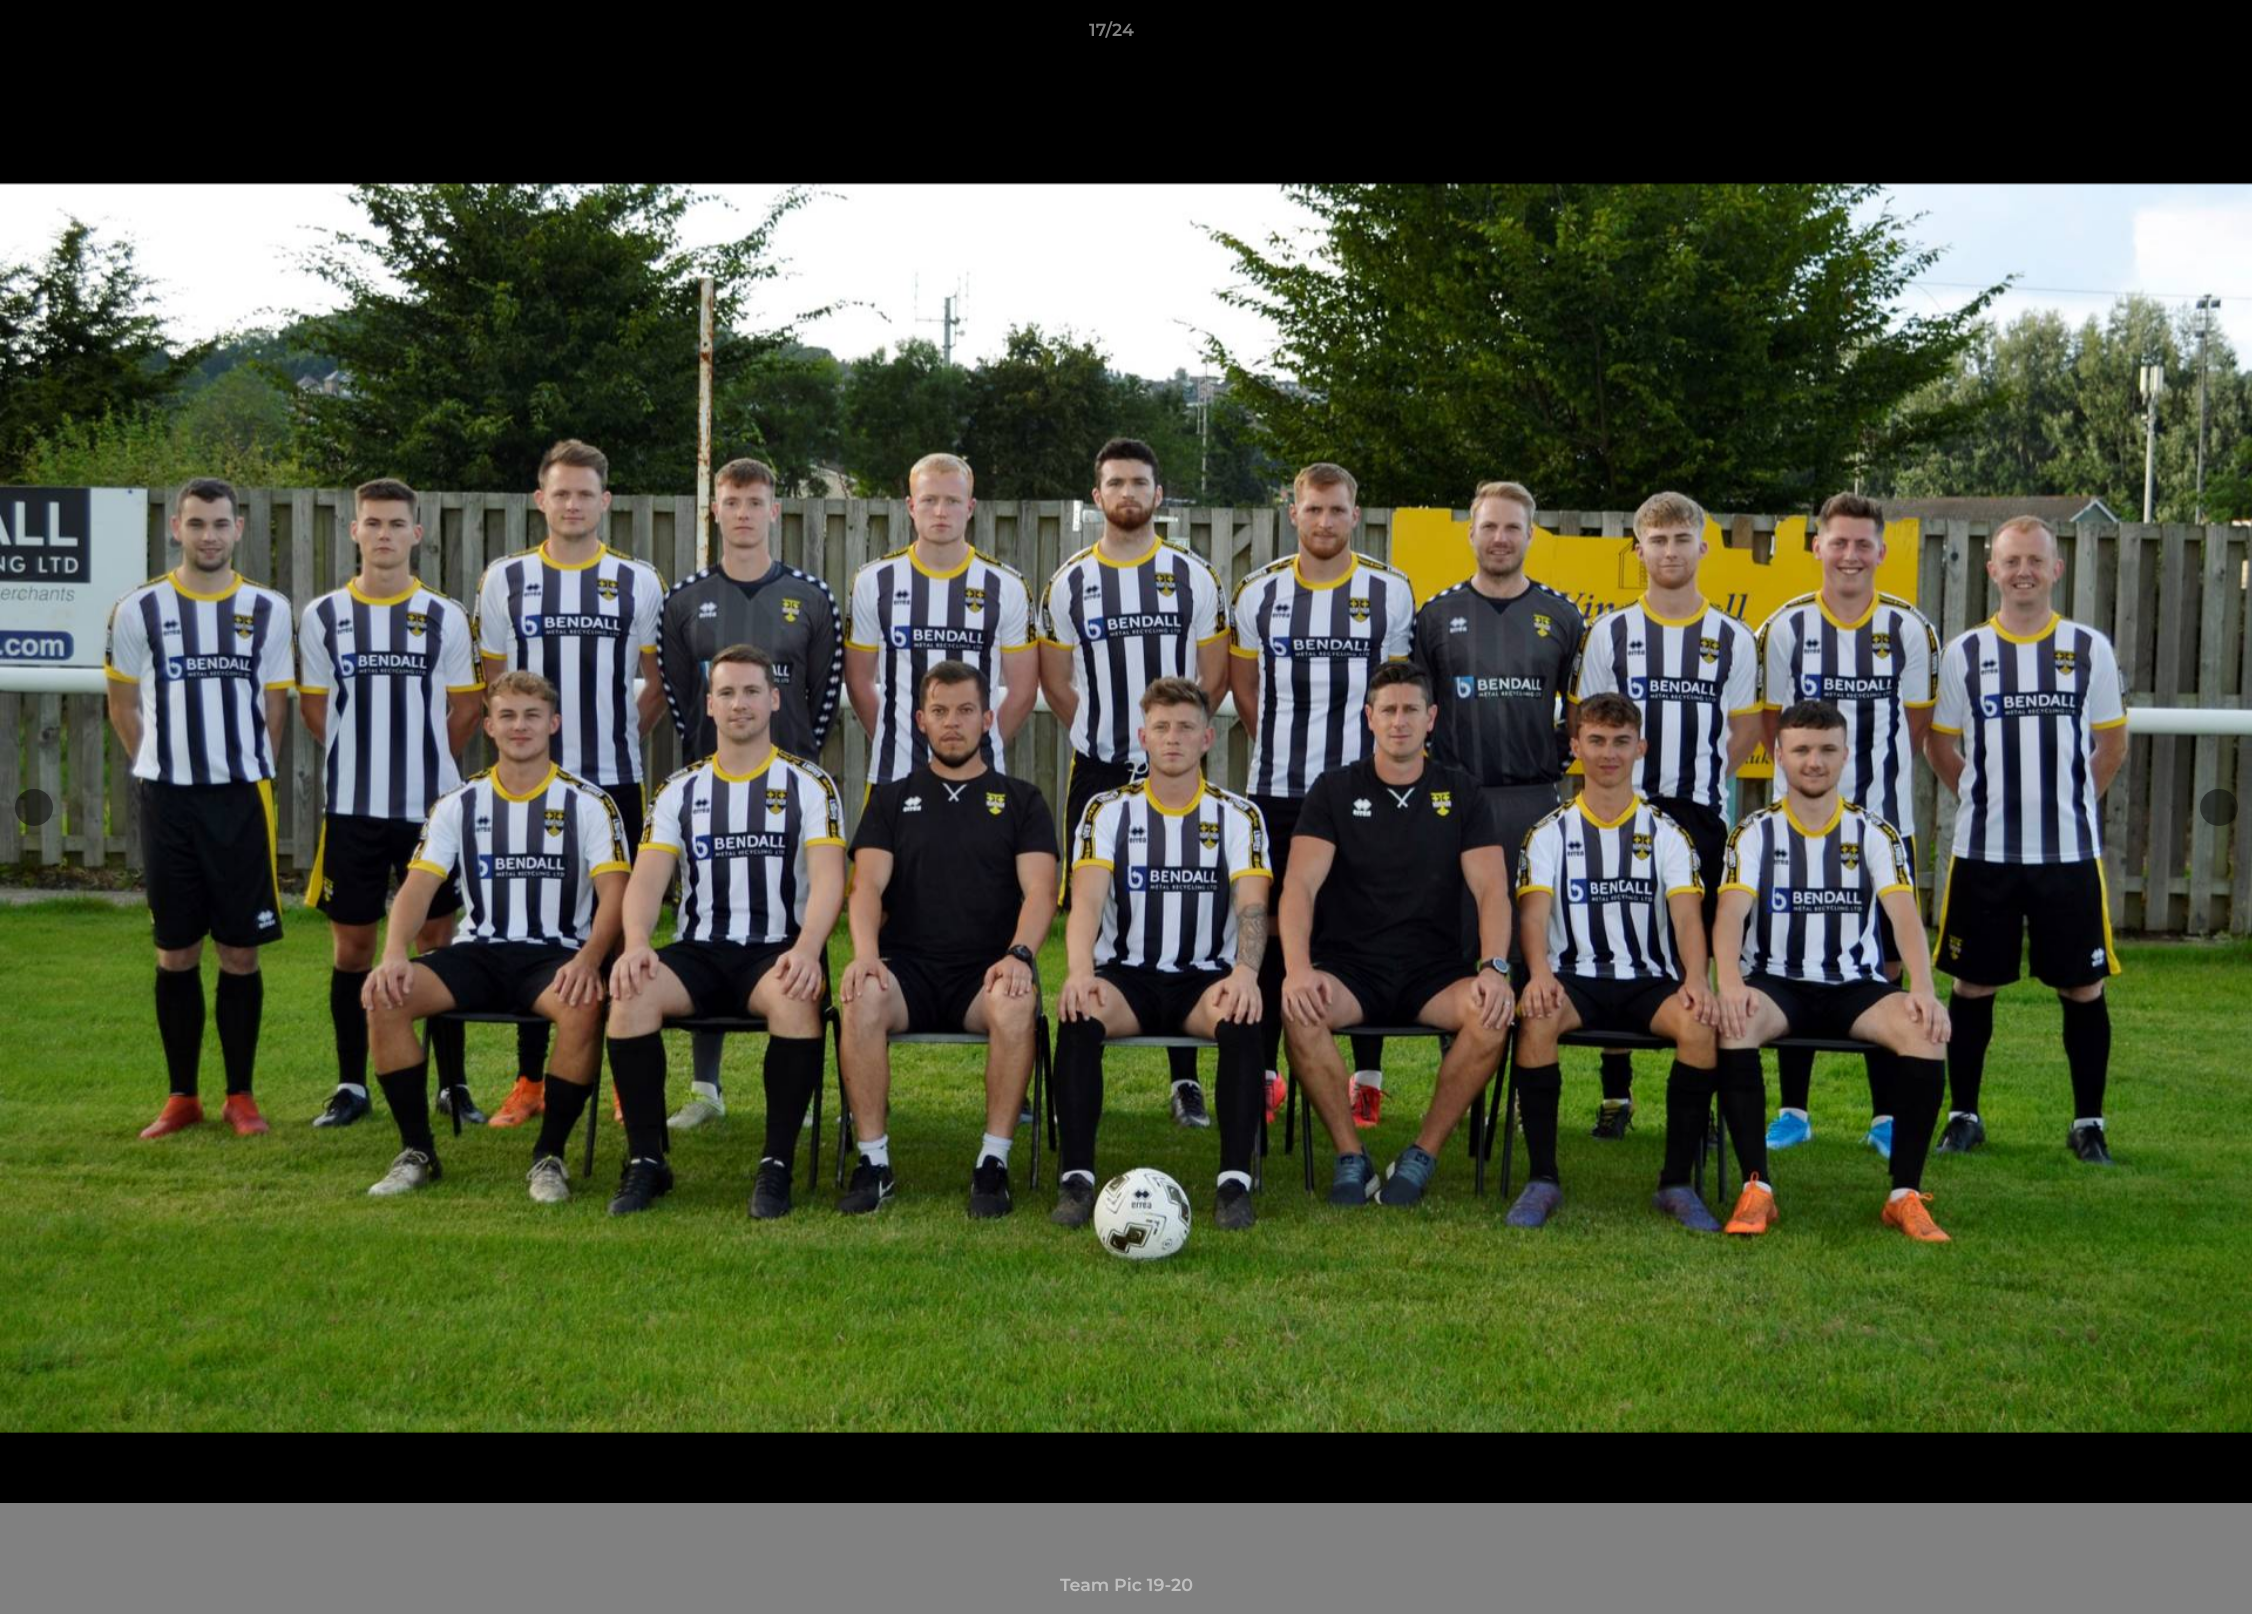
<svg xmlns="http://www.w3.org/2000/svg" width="2252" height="1614">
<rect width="100%" height="100%" fill="#000"/>
<rect y="1503" width="2252" height="111" fill="#808080"/>
<text x="1089" y="36" style="font-family:Montserrat;font-size:17.5px;font-weight:600;fill:#808080">17/24</text>
<image x="0" y="183" width="2252" height="1250" href="media/1.png"/>
<rect x="15" y="789" width="38" height="37" rx="18.5" fill="#00000080"/>
<rect x="2200" y="789" width="38" height="37" rx="18.5" fill="#00000080"/>
<text x="1060" y="1591" style="font-family:Montserrat;font-size:17.5px;font-weight:600;fill:#c0c0c0">Team Pic 19-20</text>
</svg>
